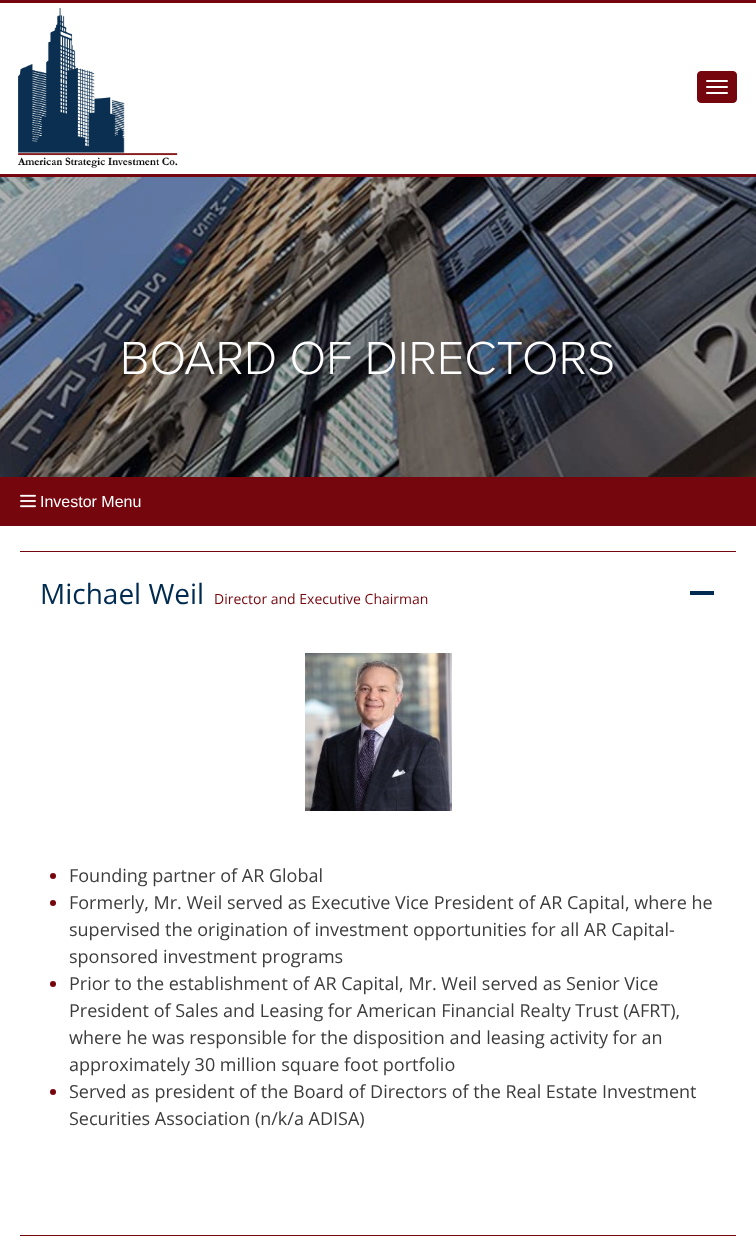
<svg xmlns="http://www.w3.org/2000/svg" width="756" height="1255">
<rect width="100%" height="100%" fill="#fff"/>
<rect width="756" height="3" fill="#76060d"/>
<rect y="174" width="756" height="3" fill="#76060d"/>
<image x="18" y="8" width="160" height="161" href="media/1.png"/>
<rect x="697.5" y="71.5" width="39" height="31" rx="3.5" fill="#76060d" stroke="#76060d"/>
<rect x="706" y="80" width="22" height="2" rx="1" fill="#fff"/>
<rect x="706" y="86" width="22" height="2" rx="1" fill="#fff"/>
<rect x="706" y="92" width="22" height="2" rx="1" fill="#fff"/>
<image x="0" y="177" width="756" height="300" href="media/2.png"/>
<text x="120" y="374" style="font-family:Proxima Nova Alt;font-size:48px;font-weight:300;fill:#fff">BOARD OF DIRECTORS</text>
<rect y="477" width="756" height="49" fill="#76060d"/>
<image x="20" y="494" width="16" height="14" href="media/3.png"/>
<text x="40" y="507" style="font-family:Liberation Sans;font-size:16px;fill:#fff">Investor Menu</text>
<rect x="20" y="551" width="716" height="1" fill="#76060d"/>
<text x="40" y="604" style="font-family:Open Sans;font-size:28px;fill:#002b51">Michael Weil</text>
<text x="214" y="604" style="font-family:Open Sans;font-size:14px;fill:#76060d">Director and Executive Chairman</text>
<rect x="690" y="591" width="24" height="4" fill="#002b51"/>
<image x="305" y="653" width="147" height="158" href="media/4.png"/>
<circle cx="53" cy="876" r="3" fill="#76060d"/>
<text x="69" y="882" style="font-family:Open Sans;font-size:18px;fill:#3c3c3c">Founding partner of AR Global</text>
<circle cx="53" cy="903" r="3" fill="#76060d"/>
<text x="69" y="909" style="font-family:Open Sans;font-size:18px;fill:#3c3c3c">Formerly, Mr. Weil served as Executive Vice President of AR Capital, where he</text>
<text x="69" y="936" style="font-family:Open Sans;font-size:18px;fill:#3c3c3c">supervised the origination of investment opportunities for all AR Capital-</text>
<text x="69" y="963" style="font-family:Open Sans;font-size:18px;fill:#3c3c3c">sponsored investment programs</text>
<circle cx="53" cy="984" r="3" fill="#76060d"/>
<text x="69" y="990" style="font-family:Open Sans;font-size:18px;fill:#3c3c3c">Prior to the establishment of AR Capital, Mr. Weil served as Senior Vice</text>
<text x="69" y="1017" style="font-family:Open Sans;font-size:18px;fill:#3c3c3c">President of Sales and Leasing for American Financial Realty Trust (AFRT),</text>
<text x="69" y="1044" style="font-family:Open Sans;font-size:18px;fill:#3c3c3c">where he was responsible for the disposition and leasing activity for an</text>
<text x="69" y="1071" style="font-family:Open Sans;font-size:18px;fill:#3c3c3c">approximately 30 million square foot portfolio</text>
<circle cx="53" cy="1092" r="3" fill="#76060d"/>
<text x="69" y="1098" style="font-family:Open Sans;font-size:18px;fill:#3c3c3c">Served as president of the Board of Directors of the Real Estate Investment</text>
<text x="69" y="1125" style="font-family:Open Sans;font-size:18px;fill:#3c3c3c">Securities Association (n/k/a ADISA)</text>
<rect x="20" y="1235" width="716" height="1" fill="#76060d"/>
</svg>
